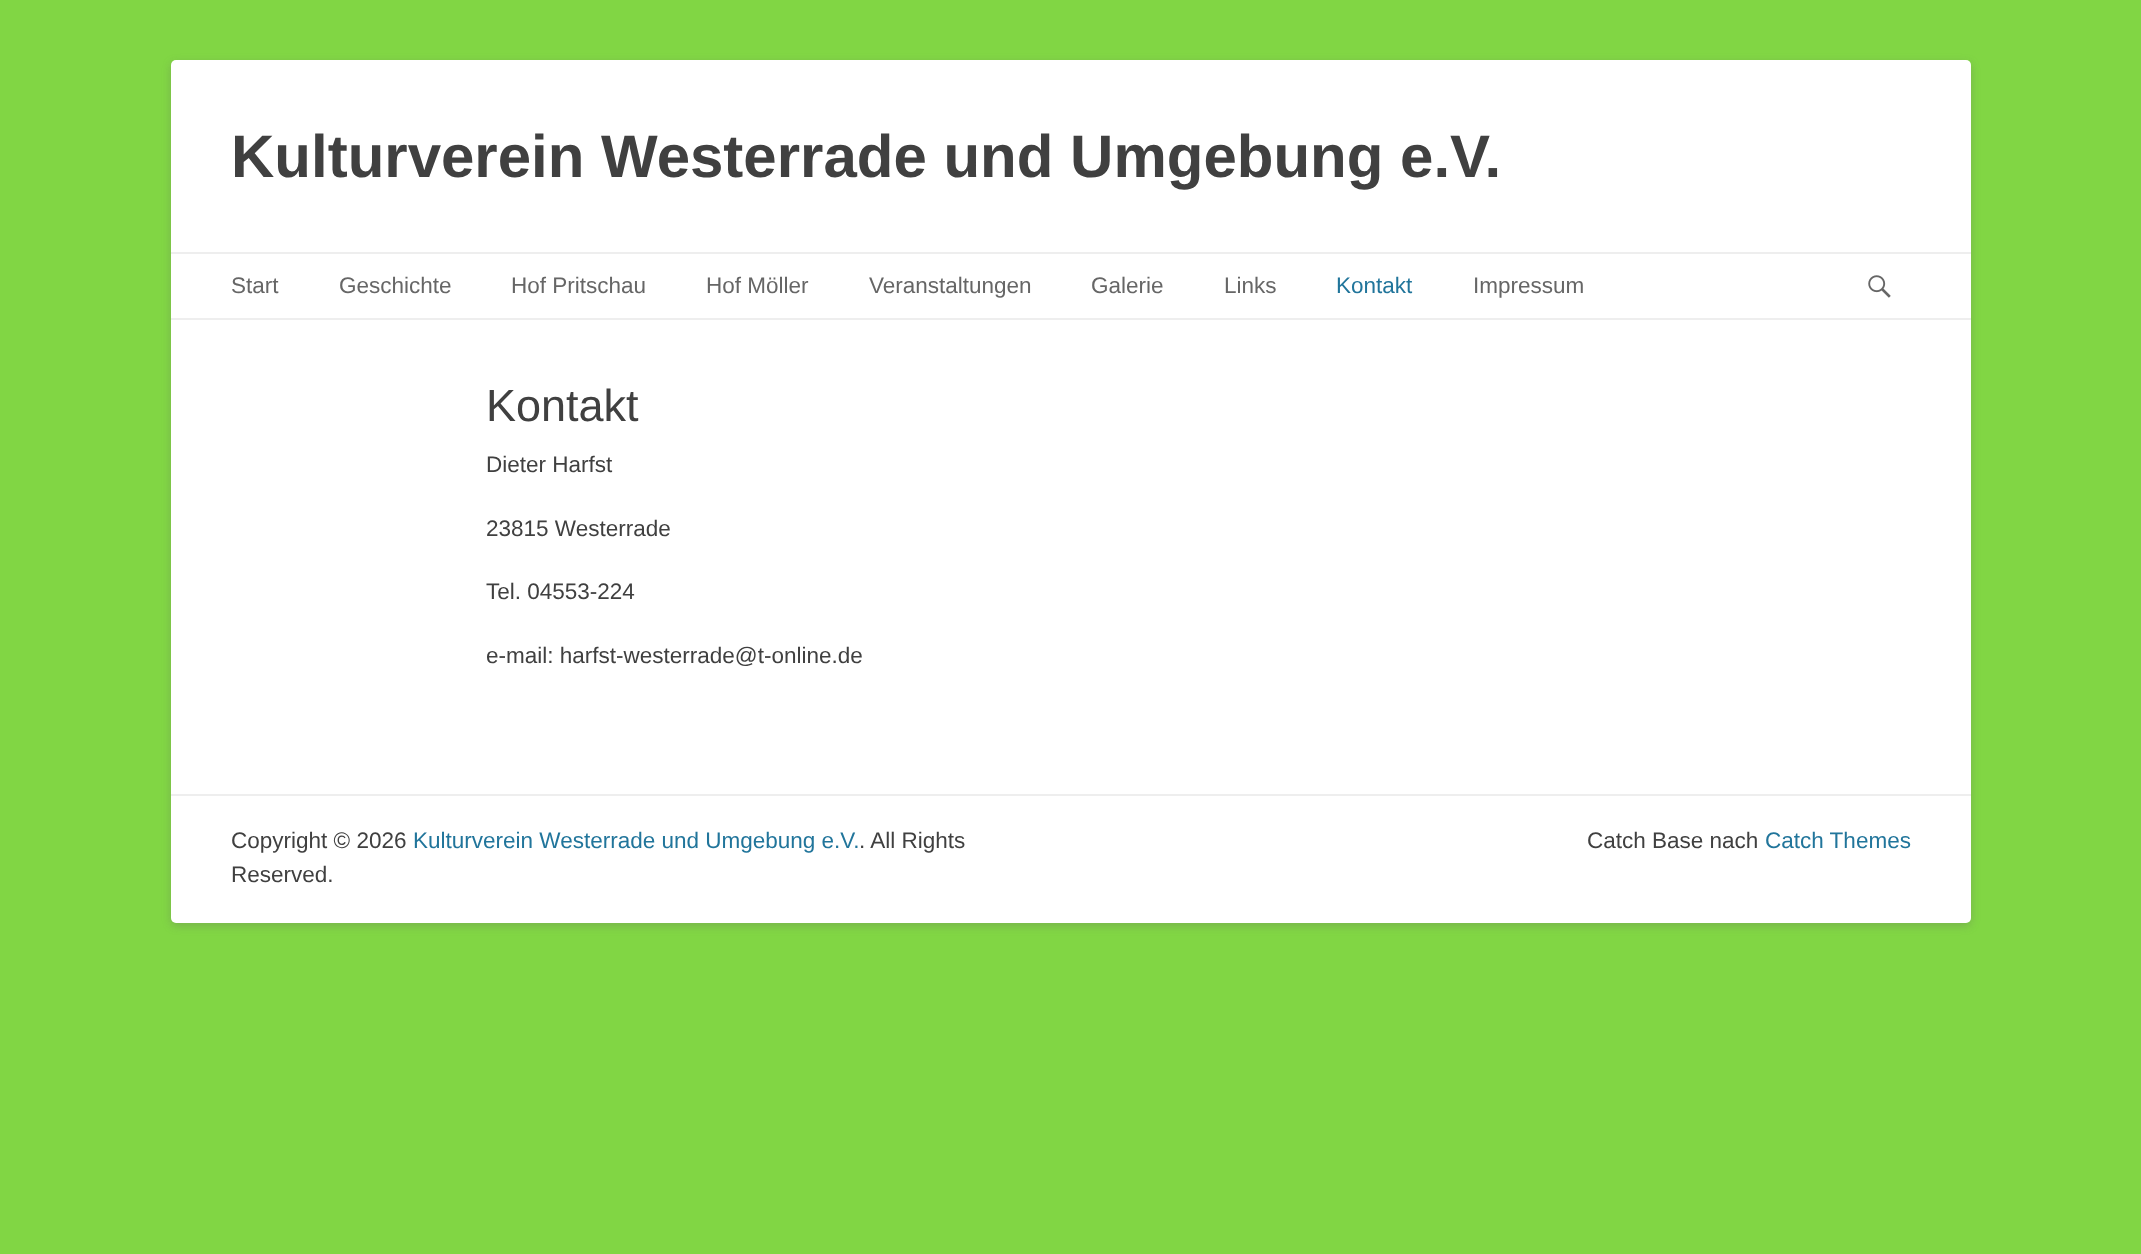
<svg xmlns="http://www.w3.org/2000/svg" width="2141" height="1254">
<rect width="100%" height="100%" fill="#81d644"/>
<rect x="171" y="63" width="1800" height="863" rx="5" fill="#6464644d" filter="blur(4.5px)"/>
<rect x="171" y="60" width="1800" height="863" rx="5" fill="#fff"/>
<text x="231" y="177" style="font-family:Liberation Sans;font-size:60px;font-weight:bold;fill:#404040">Kulturverein Westerrade und Umgebung e.V.</text>
<rect x="171" y="252" width="1800" height="2" fill="#eee"/>
<rect x="171" y="318" width="1800" height="2" fill="#eee"/>
<text x="231" y="293" style="font-family:Liberation Sans;font-size:22.5px;fill:#666">Start</text>
<text x="339" y="293" style="font-family:Liberation Sans;font-size:22.5px;fill:#666">Geschichte</text>
<text x="511" y="293" style="font-family:Liberation Sans;font-size:22.5px;fill:#666">Hof Pritschau</text>
<text x="706" y="293" style="font-family:Liberation Sans;font-size:22.5px;fill:#666">Hof Möller</text>
<text x="869" y="293" style="font-family:Liberation Sans;font-size:22.5px;fill:#666">Veranstaltungen</text>
<text x="1091" y="293" style="font-family:Liberation Sans;font-size:22.5px;fill:#666">Galerie</text>
<text x="1224" y="293" style="font-family:Liberation Sans;font-size:22.5px;fill:#666">Links</text>
<text x="1336" y="293" style="font-family:Liberation Sans;font-size:22.5px;fill:#21759b">Kontakt</text>
<text x="1473" y="293" style="font-family:Liberation Sans;font-size:22.5px;fill:#666">Impressum</text>
<image x="1868" y="275" width="23" height="23" href="media/1.png"/>
<text x="486" y="421" style="font-family:Liberation Sans;font-size:45px;fill:#404040">Kontakt</text>
<text x="486" y="472" style="font-family:Liberation Sans;font-size:22.5px;fill:#404040">Dieter Harfst</text>
<text x="486" y="536" style="font-family:Liberation Sans;font-size:22.5px;fill:#404040">23815 Westerrade</text>
<text x="486" y="599" style="font-family:Liberation Sans;font-size:22.5px;fill:#404040">Tel. 04553-224</text>
<text x="486" y="663" style="font-family:Liberation Sans;font-size:22.5px;fill:#404040">e-mail: harfst-westerrade@t-online.de</text>
<rect x="171" y="794" width="1800" height="2" fill="#eee"/>
<text x="231" y="848" style="font-family:Liberation Sans;font-size:22.5px;fill:#404040">Copyright © 2026</text>
<text x="413" y="848" style="font-family:Liberation Sans;font-size:22.5px;fill:#21759b">Kulturverein Westerrade und Umgebung e.V.</text>
<text x="859" y="848" style="font-family:Liberation Sans;font-size:22.5px;fill:#404040">. All Rights</text>
<text x="231" y="882" style="font-family:Liberation Sans;font-size:22.5px;fill:#404040">Reserved.</text>
<text x="1587" y="848" style="font-family:Liberation Sans;font-size:22.5px;fill:#404040">Catch Base nach</text>
<text x="1765" y="848" style="font-family:Liberation Sans;font-size:22.5px;fill:#21759b">Catch Themes</text>
</svg>
